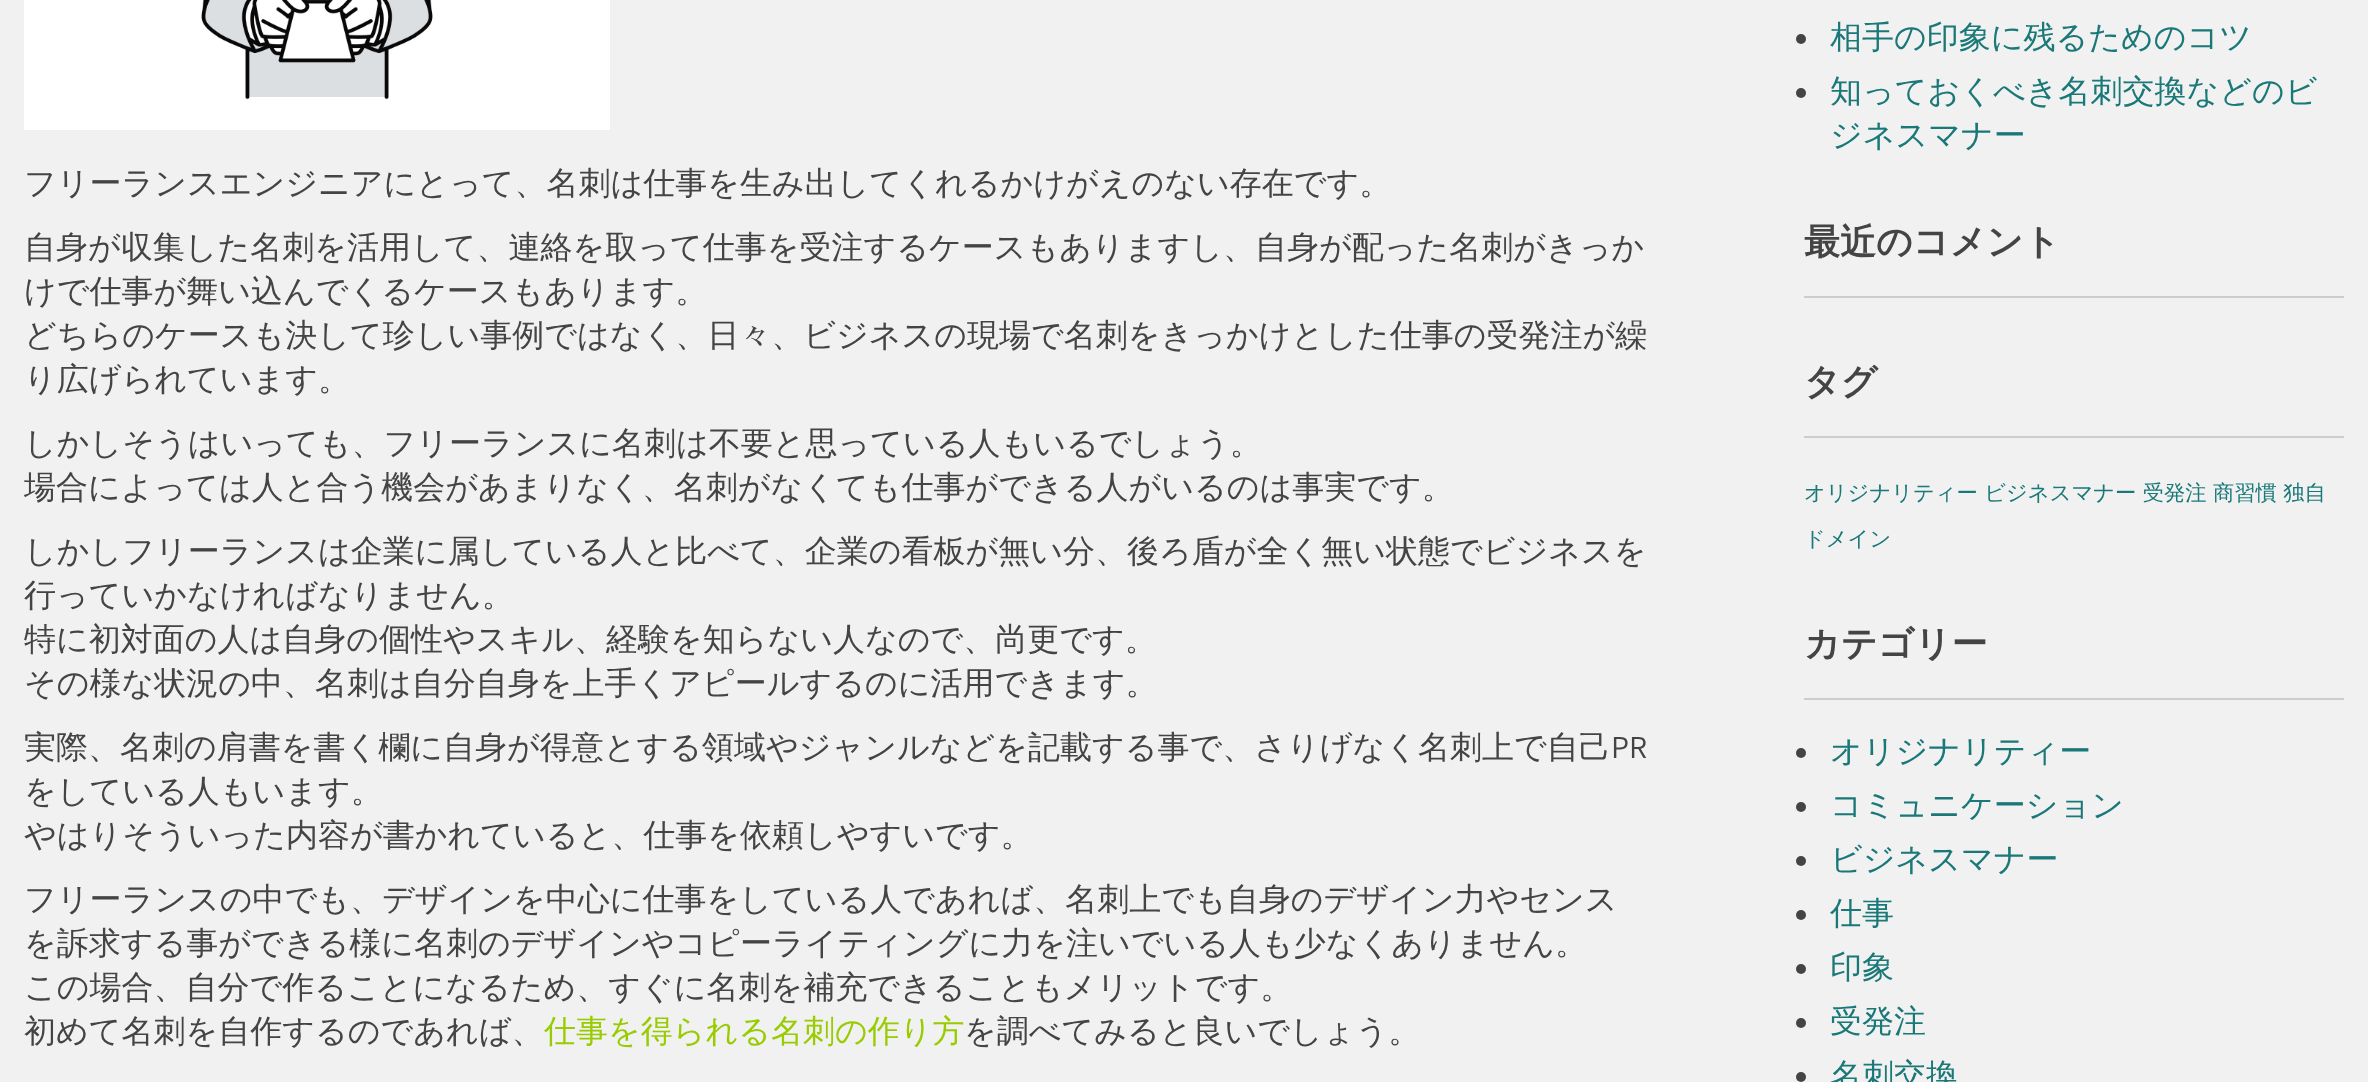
<svg xmlns="http://www.w3.org/2000/svg" width="2368" height="1082">
<rect width="100%" height="100%" fill="#f1f1f1"/>
<image x="24" y="0" width="586" height="130" href="media/1.png"/>
<text x="24" y="194" style="font-family:WenQuanYi Zen Hei;font-size:32px;font-weight:500;fill:#444">フリーランスエンジニアにとって、名刺は仕事を生み出してくれるかけがえのない存在です。</text>
<text x="24" y="258" style="font-family:WenQuanYi Zen Hei;font-size:32px;font-weight:500;fill:#444">自身が収集した名刺を活用して、連絡を取って仕事を受注するケースもありますし、自身が配った名刺がきっか</text>
<text x="24" y="302" style="font-family:WenQuanYi Zen Hei;font-size:32px;font-weight:500;fill:#444">けで仕事が舞い込んでくるケースもあります。</text>
<text x="24" y="346" style="font-family:WenQuanYi Zen Hei;font-size:32px;font-weight:500;fill:#444">どちらのケースも決して珍しい事例ではなく、日々、ビジネスの現場で名刺をきっかけとした仕事の受発注が繰</text>
<text x="24" y="390" style="font-family:WenQuanYi Zen Hei;font-size:32px;font-weight:500;fill:#444">り広げられています。</text>
<text x="24" y="454" style="font-family:WenQuanYi Zen Hei;font-size:32px;font-weight:500;fill:#444">しかしそうはいっても、フリーランスに名刺は不要と思っている人もいるでしょう。</text>
<text x="24" y="498" style="font-family:WenQuanYi Zen Hei;font-size:32px;font-weight:500;fill:#444">場合によっては人と合う機会があまりなく、名刺がなくても仕事ができる人がいるのは事実です。</text>
<text x="24" y="562" style="font-family:WenQuanYi Zen Hei;font-size:32px;font-weight:500;fill:#444">しかしフリーランスは企業に属している人と比べて、企業の看板が無い分、後ろ盾が全く無い状態でビジネスを</text>
<text x="24" y="606" style="font-family:WenQuanYi Zen Hei;font-size:32px;font-weight:500;fill:#444">行っていかなければなりません。</text>
<text x="24" y="650" style="font-family:WenQuanYi Zen Hei;font-size:32px;font-weight:500;fill:#444">特に初対面の人は自身の個性やスキル、経験を知らない人なので、尚更です。</text>
<text x="24" y="694" style="font-family:WenQuanYi Zen Hei;font-size:32px;font-weight:500;fill:#444">その様な状況の中、名刺は自分自身を上手くアピールするのに活用できます。</text>
<text x="24" y="758" style="font-family:WenQuanYi Zen Hei;font-size:32px;font-weight:500;fill:#444">実際、名刺の肩書を書く欄に自身が得意とする領域やジャンルなどを記載する事で、さりげなく名刺上で自己</text>
<text x="1611" y="758" style="font-family:Assistant;font-size:32px;fill:#444">PR</text>
<text x="24" y="802" style="font-family:WenQuanYi Zen Hei;font-size:32px;font-weight:500;fill:#444">をしている人もいます。</text>
<text x="24" y="846" style="font-family:WenQuanYi Zen Hei;font-size:32px;font-weight:500;fill:#444">やはりそういった内容が書かれていると、仕事を依頼しやすいです。</text>
<text x="24" y="910" style="font-family:WenQuanYi Zen Hei;font-size:32px;font-weight:500;fill:#444">フリーランスの中でも、デザインを中心に仕事をしている人であれば、名刺上でも自身のデザイン力やセンス</text>
<text x="24" y="954" style="font-family:WenQuanYi Zen Hei;font-size:32px;font-weight:500;fill:#444">を訴求する事ができる様に名刺のデザインやコピーライティングに力を注いでいる人も少なくありません。</text>
<text x="24" y="998" style="font-family:WenQuanYi Zen Hei;font-size:32px;font-weight:500;fill:#444">この場合、自分で作ることになるため、すぐに名刺を補充できることもメリットです。</text>
<text x="24" y="1042" style="font-family:WenQuanYi Zen Hei;font-size:32px;font-weight:500;fill:#444">初めて名刺を自作するのであれば、</text>
<text x="544" y="1042" style="font-family:WenQuanYi Zen Hei;font-size:32px;font-weight:500;fill:#9c0">仕事を得られる名刺の作り方</text>
<text x="964" y="1042" style="font-family:WenQuanYi Zen Hei;font-size:32px;font-weight:500;fill:#444">を調べてみると良いでしょう。</text>
<circle cx="1801" cy="39" r="5" fill="#444"/>
<text x="1830" y="48" style="font-family:WenQuanYi Zen Hei;font-size:32px;font-weight:500;fill:#1a7878">相手の印象に残るためのコツ</text>
<circle cx="1801" cy="93" r="5" fill="#444"/>
<text x="1830" y="102" style="font-family:WenQuanYi Zen Hei;font-size:32px;font-weight:500;fill:#1a7878">知っておくべき名刺交換などのビ</text>
<text x="1830" y="146" style="font-family:WenQuanYi Zen Hei;font-size:32px;font-weight:500;fill:#1a7878">ジネスマナー</text>
<rect x="1804" y="296" width="540" height="2" fill="#ccc"/>
<text x="1804" y="254" style="font-family:WenQuanYi Zen Hei;font-size:36px;font-weight:bold;fill:#444">最近のコメント</text>
<rect x="1804" y="436" width="540" height="2" fill="#ccc"/>
<text x="1804" y="394" style="font-family:WenQuanYi Zen Hei;font-size:36px;font-weight:bold;fill:#444">タグ</text>
<text x="1804" y="500" style="font-family:WenQuanYi Zen Hei;font-size:21.3px;font-weight:500;fill:#1a7878">オリジナリティー ビジネスマナー 受発注 商習慣 独自</text>
<text x="1804" y="546" style="font-family:WenQuanYi Zen Hei;font-size:21.3px;font-weight:500;fill:#1a7878">ドメイン</text>
<rect x="1804" y="698" width="540" height="2" fill="#ccc"/>
<text x="1804" y="656" style="font-family:WenQuanYi Zen Hei;font-size:36px;font-weight:bold;fill:#444">カテゴリー</text>
<circle cx="1801" cy="753" r="5" fill="#444"/>
<text x="1830" y="762" style="font-family:WenQuanYi Zen Hei;font-size:32px;font-weight:500;fill:#1a7878">オリジナリティー</text>
<circle cx="1801" cy="807" r="5" fill="#444"/>
<text x="1830" y="816" style="font-family:WenQuanYi Zen Hei;font-size:32px;font-weight:500;fill:#1a7878">コミュニケーション</text>
<circle cx="1801" cy="861" r="5" fill="#444"/>
<text x="1830" y="870" style="font-family:WenQuanYi Zen Hei;font-size:32px;font-weight:500;fill:#1a7878">ビジネスマナー</text>
<circle cx="1801" cy="915" r="5" fill="#444"/>
<text x="1830" y="924" style="font-family:WenQuanYi Zen Hei;font-size:32px;font-weight:500;fill:#1a7878">仕事</text>
<circle cx="1801" cy="969" r="5" fill="#444"/>
<text x="1830" y="978" style="font-family:WenQuanYi Zen Hei;font-size:32px;font-weight:500;fill:#1a7878">印象</text>
<circle cx="1801" cy="1023" r="5" fill="#444"/>
<text x="1830" y="1032" style="font-family:WenQuanYi Zen Hei;font-size:32px;font-weight:500;fill:#1a7878">受発注</text>
<circle cx="1801" cy="1077" r="5" fill="#444"/>
<text x="1830" y="1086" style="font-family:WenQuanYi Zen Hei;font-size:32px;font-weight:500;fill:#1a7878">名刺交換</text>
</svg>
